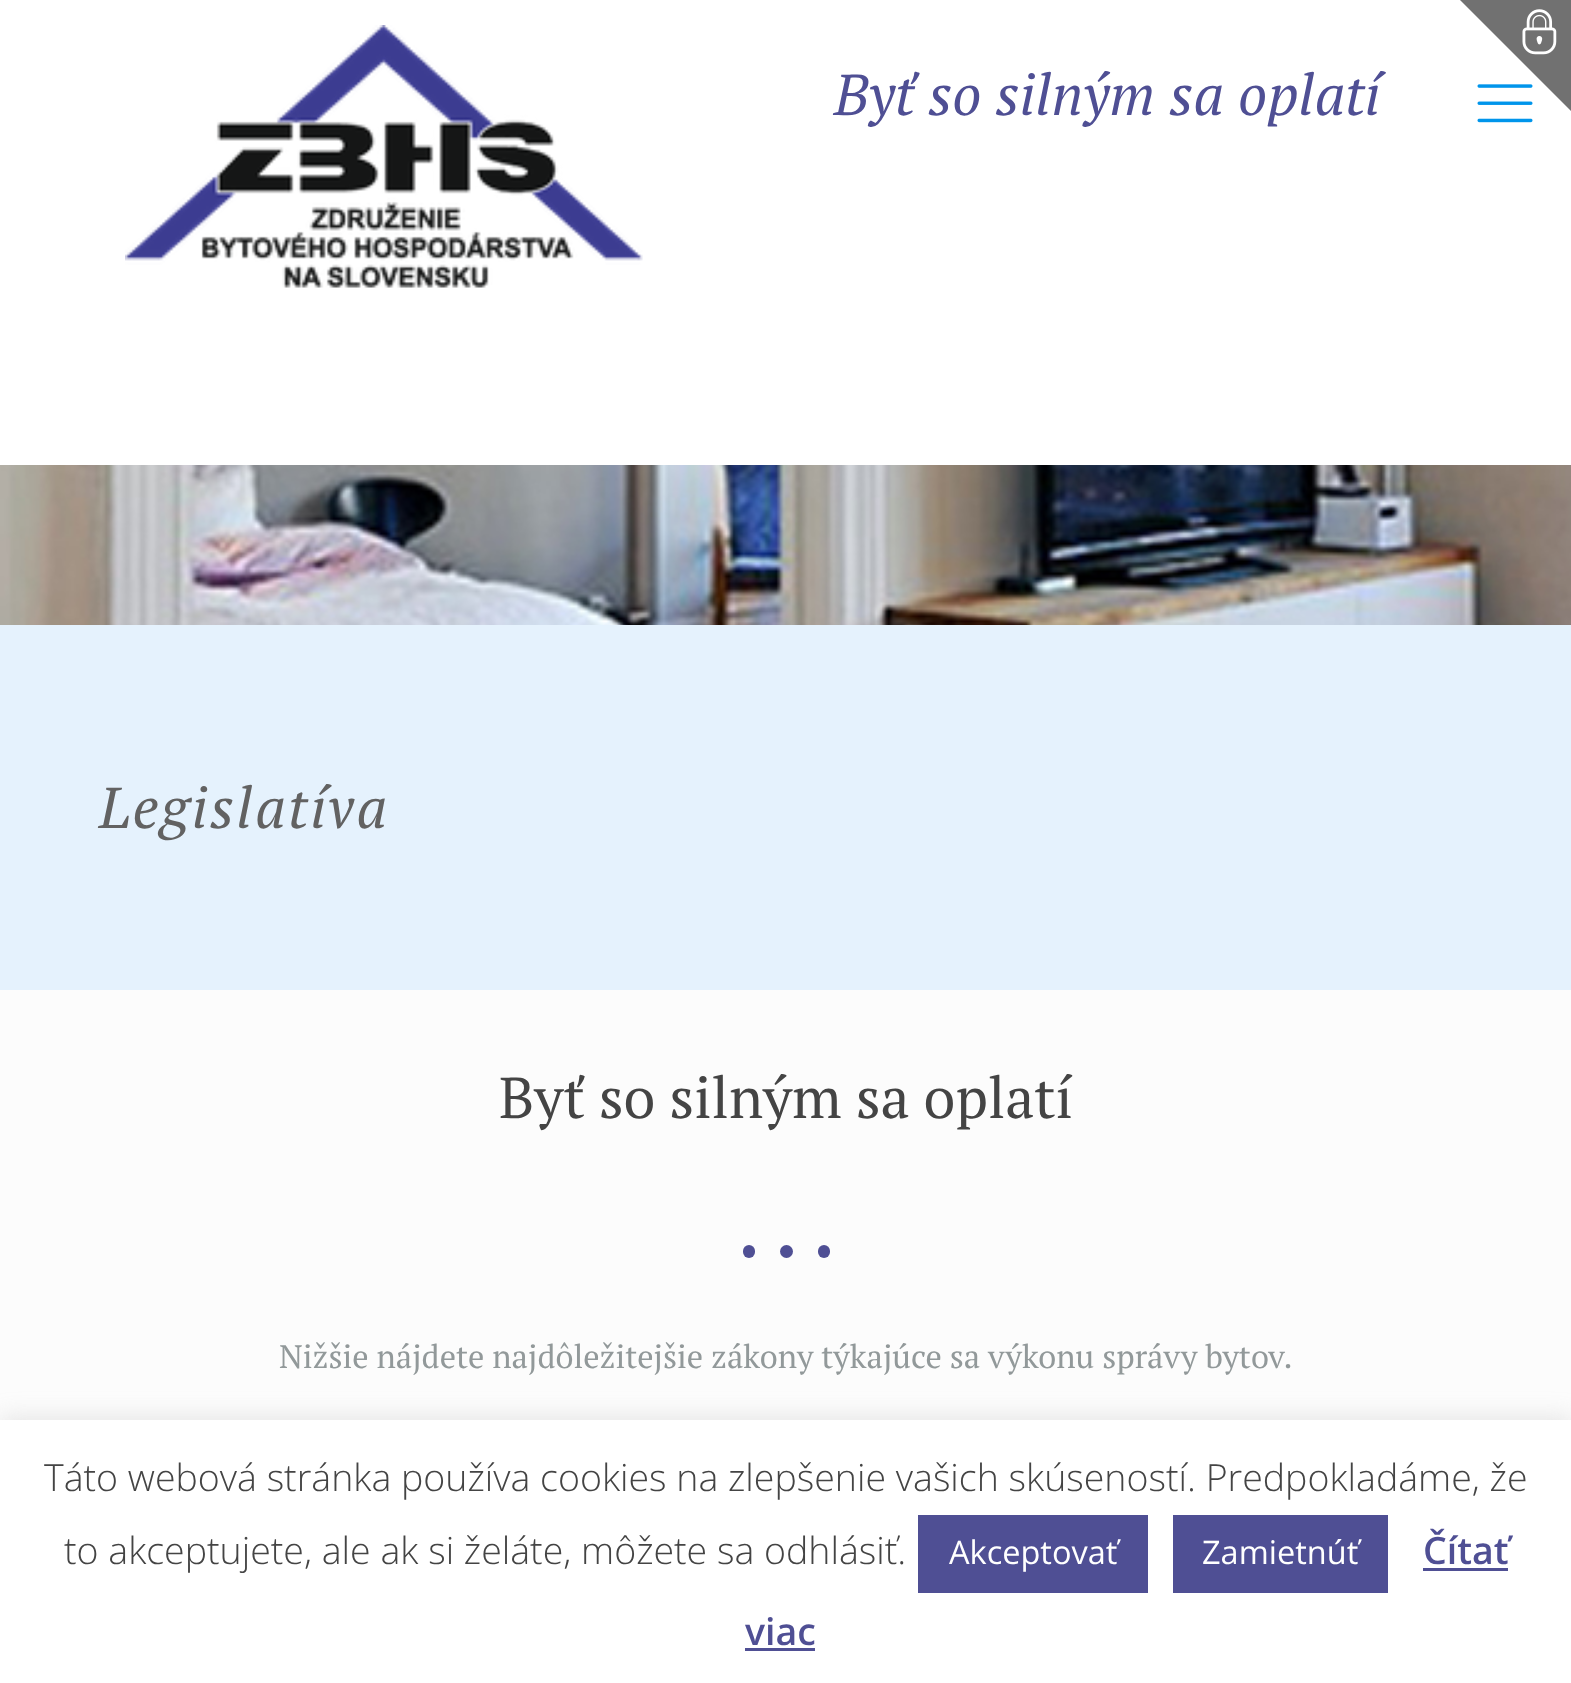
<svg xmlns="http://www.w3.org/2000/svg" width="1571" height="1683">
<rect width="100%" height="100%" fill="#fcfcfc"/>
<rect width="1571" height="465" fill="#fff"/>
<image x="1477" y="84" width="56" height="39" href="media/4.png"/>
<path d="M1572 0v112l-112-112z" fill="#717171"/>
<image x="1522" y="9" width="35" height="46" href="media/1.png"/>
<image x="0" y="465" width="1571" height="160" href="media/2.png"/>
<image x="125" y="25" width="518" height="263" href="media/3.png"/>
<text x="834" y="115" style="font-family:PT Serif;font-size:57.5px;font-style:italic;fill:#4f4f94">Byť so silným sa oplatí</text>
<rect y="625" width="1571" height="365" fill="#e5f2fd"/>
<text x="99" y="828" style="font-family:PT Serif;font-size:57.5px;font-style:italic;letter-spacing:2.5px;fill:#626262">Legislatíva</text>
<text x="499" y="1118" style="font-family:PT Serif;font-size:57.5px;fill:#444">Byť so silným sa oplatí</text>
<rect x="743" y="1245" width="12" height="13" rx="6" fill="#4f4f94"/>
<circle cx="786.5" cy="1251.5" r="6.5" fill="#4f4f94"/>
<rect x="818" y="1245" width="12" height="13" rx="6" fill="#4f4f94"/>
<text x="279" y="1368" style="font-family:PT Serif;font-size:32.5px;fill:#92999a">Nižšie nájdete najdôležitejšie zákony týkajúce sa výkonu správy bytov.</text>
<rect y="1418" width="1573" height="265" fill="#acabab4d" filter="blur(12.5px)"/>
<rect y="1420" width="1571" height="263" fill="#fff"/>
<text x="44" y="1491" style="font-family:Open Sans;font-size:37.5px;font-weight:300;fill:#444">Táto webová stránka používa cookies na zlepšenie vašich skúseností. Predpokladáme, že</text>
<text x="64" y="1564" style="font-family:Open Sans;font-size:37.5px;font-weight:300;fill:#444">to akceptujete, ale ak si želáte, môžete sa odhlásiť.</text>
<rect x="918" y="1515" width="230" height="78" fill="#4f4f94"/>
<text x="949" y="1564" style="font-family:Open Sans;font-size:32.5px;fill:#fff">Akceptovať</text>
<rect x="1173" y="1515" width="215" height="78" fill="#4f4f94"/>
<text x="1202" y="1564" style="font-family:Open Sans;font-size:32.5px;fill:#fff">Zamietnúť</text>
<text x="1423" y="1564" style="font-family:Open Sans;font-size:37.5px;font-weight:600;fill:#4f4f94">Čítať</text>
<rect x="1423" y="1568" width="85" height="3" fill="#4f4f94"/>
<text x="745" y="1645" style="font-family:Open Sans;font-size:37.5px;font-weight:600;fill:#4f4f94">viac</text>
<rect x="745" y="1648" width="70" height="3" fill="#4f4f94"/>
</svg>
